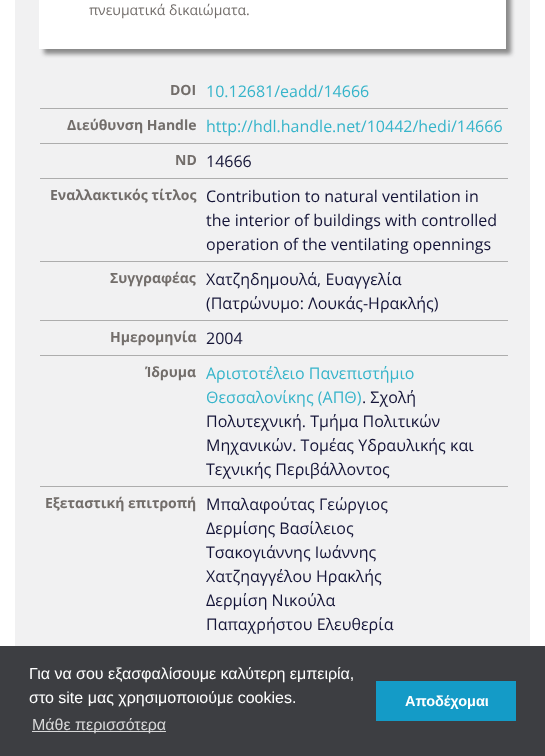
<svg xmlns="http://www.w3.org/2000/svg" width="545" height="756">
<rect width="100%" height="100%" fill="#fff"/>
<rect x="15" width="515" height="646" fill="#f1f1f2"/>
<rect x="44" y="-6" width="467" height="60" fill="#8a8a8a" filter="blur(2px)"/>
<rect x="39" width="467" height="49" fill="#fff"/>
<text x="89" y="15" style="font-family:Open Sans;font-size:14px;fill:#726d6a">πνευματικά δικαιώματα.</text>
<rect x="40" y="108" width="468" height="1" fill="#adadad"/>
<text x="170" y="95" style="font-family:Open Sans;font-size:14px;font-weight:bold;fill:#726d6a">DOI</text>
<text x="206" y="97" style="font-family:Open Sans;font-size:16px;fill:#36b4ca">10.12681/eadd/14666</text>
<rect x="40" y="143" width="468" height="1" fill="#adadad"/>
<text x="67" y="130" style="font-family:Open Sans;font-size:14px;font-weight:bold;fill:#726d6a">Διεύθυνση Handle</text>
<text x="206" y="132" style="font-family:Open Sans;font-size:16px;fill:#36b4ca">http://hdl.handle.net/10442/hedi/14666</text>
<rect x="40" y="178" width="468" height="1" fill="#adadad"/>
<text x="175" y="165" style="font-family:Open Sans;font-size:14px;font-weight:bold;fill:#726d6a">ND</text>
<text x="206" y="167" style="font-family:Open Sans;font-size:16px;fill:#141437">14666</text>
<rect x="40" y="261" width="468" height="1" fill="#adadad"/>
<text x="50" y="200" style="font-family:Open Sans;font-size:14px;font-weight:bold;fill:#726d6a">Εναλλακτικός τίτλος</text>
<text x="206" y="202" style="font-family:Open Sans;font-size:16px;fill:#141437">Contribution to natural ventilation in</text>
<text x="206" y="226" style="font-family:Open Sans;font-size:16px;fill:#141437">the interior of buildings with controlled</text>
<text x="206" y="250" style="font-family:Open Sans;font-size:16px;fill:#141437">operation of the ventilating opennings</text>
<rect x="40" y="320" width="468" height="1" fill="#adadad"/>
<text x="110" y="283" style="font-family:Open Sans;font-size:14px;font-weight:bold;fill:#726d6a">Συγγραφέας</text>
<text x="206" y="285" style="font-family:Open Sans;font-size:16px;fill:#141437">Χατζηδημουλά, Ευαγγελία</text>
<text x="206" y="309" style="font-family:Open Sans;font-size:16px;fill:#141437">(Πατρώνυμο: Λουκάς-Ηρακλής)</text>
<rect x="40" y="355" width="468" height="1" fill="#adadad"/>
<text x="110" y="342" style="font-family:Open Sans;font-size:14px;font-weight:bold;fill:#726d6a">Ημερομηνία</text>
<text x="206" y="344" style="font-family:Open Sans;font-size:16px;fill:#141437">2004</text>
<rect x="40" y="486" width="468" height="1" fill="#adadad"/>
<text x="145" y="377" style="font-family:Open Sans;font-size:14px;font-weight:bold;fill:#726d6a">Ίδρυμα</text>
<text x="206" y="379" style="font-family:Open Sans;font-size:16px;fill:#36b4ca">Αριστοτέλειο Πανεπιστήμιο</text>
<text x="206" y="403" style="font-family:Open Sans;font-size:16px;fill:#36b4ca">Θεσσαλονίκης (ΑΠΘ)</text>
<text x="362" y="403" style="font-family:Open Sans;font-size:16px;fill:#141437">. Σχολή</text>
<text x="206" y="427" style="font-family:Open Sans;font-size:16px;fill:#141437">Πολυτεχνική. Τμήμα Πολιτικών</text>
<text x="206" y="451" style="font-family:Open Sans;font-size:16px;fill:#141437">Μηχανικών. Τομέας Υδραυλικής και</text>
<text x="206" y="475" style="font-family:Open Sans;font-size:16px;fill:#141437">Τεχνικής Περιβάλλοντος</text>
<text x="45" y="508" style="font-family:Open Sans;font-size:14px;font-weight:bold;fill:#726d6a">Εξεταστική επιτροπή</text>
<text x="206" y="510" style="font-family:Open Sans;font-size:16px;fill:#141437">Μπαλαφούτας Γεώργιος</text>
<text x="206" y="534" style="font-family:Open Sans;font-size:16px;fill:#141437">Δερμίσης Βασίλειος</text>
<text x="206" y="558" style="font-family:Open Sans;font-size:16px;fill:#141437">Τσακογιάννης Ιωάννης</text>
<text x="206" y="582" style="font-family:Open Sans;font-size:16px;fill:#141437">Χατζηαγγέλου Ηρακλής</text>
<text x="206" y="606" style="font-family:Open Sans;font-size:16px;fill:#141437">Δερμίση Νικούλα</text>
<text x="206" y="630" style="font-family:Open Sans;font-size:16px;fill:#141437">Παπαχρήστου Ελευθερία</text>
<rect y="646" width="545" height="110" fill="#3d3e42"/>
<text x="29" y="679" style="font-family:Liberation Sans;font-size:16px;fill:#fff">Για να σου εξασφαλίσουμε καλύτερη εμπειρία,</text>
<text x="29" y="703" style="font-family:Liberation Sans;font-size:16px;fill:#fff">στο site μας χρησιμοποιούμε cookies.</text>
<rect x="32" y="731" width="134" height="1" fill="#d8d8d9"/>
<text x="32" y="730" style="font-family:Liberation Sans;font-size:16px;fill:#d8d8d9">Μάθε περισσότερα</text>
<rect x="376" y="681" width="140" height="40" fill="#149bc7"/>
<text x="405" y="706" style="font-family:Liberation Sans;font-size:14.5px;font-weight:bold;fill:#fff">Αποδέχομαι</text>
</svg>
